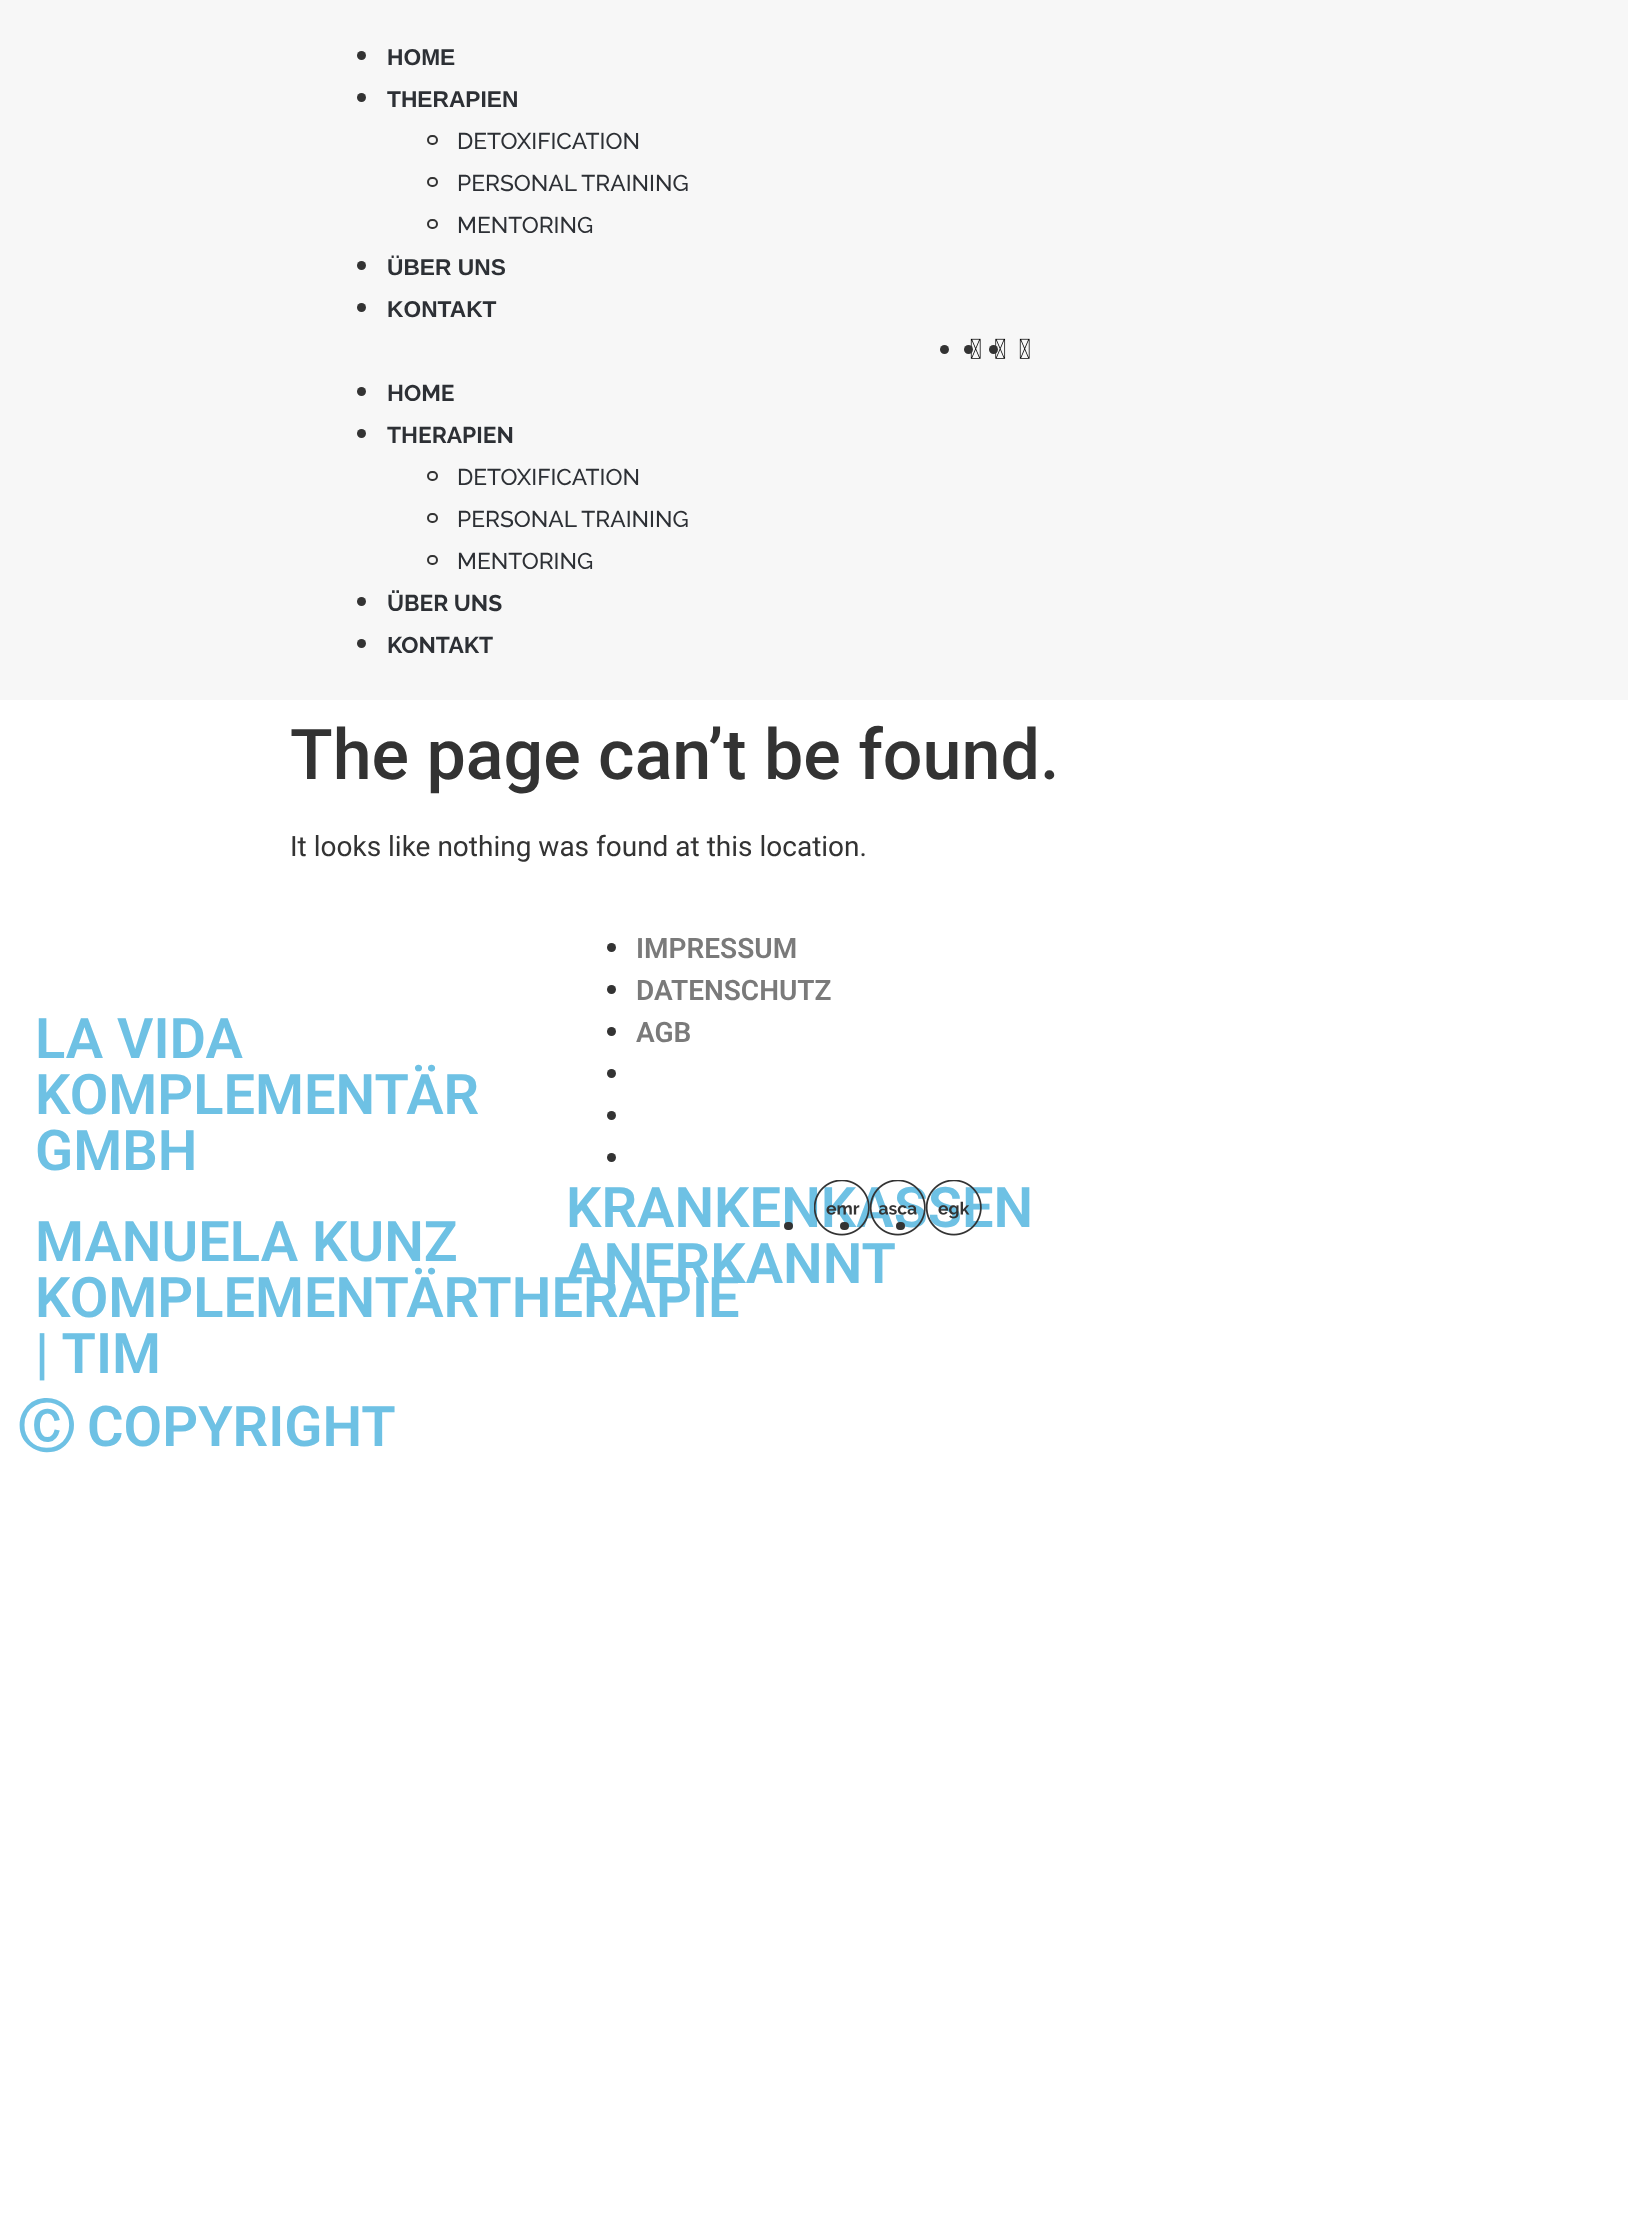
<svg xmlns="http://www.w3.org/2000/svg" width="1628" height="2218">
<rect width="100%" height="100%" fill="#fff"/>
<rect width="1628" height="700" fill="#f7f7f7"/>
<circle cx="361.5" cy="55.5" r="4.5" fill="#333"/>
<text x="387" y="65" style="font-family:Liberation Sans;font-size:22.75px;font-weight:bold;fill:#2d3035">HOME</text>
<circle cx="361.5" cy="97.5" r="4.5" fill="#333"/>
<text x="387" y="107" style="font-family:Liberation Sans;font-size:22.75px;font-weight:bold;fill:#2d3035">THERAPIEN</text>
<rect x="428" y="136" width="9" height="8" rx="4" fill="none" stroke="#333" stroke-width="2"/>
<text x="457" y="149" style="font-family:Raleway;font-size:22.75px;font-weight:500;fill:#2d3035">DETOXIFICATION</text>
<rect x="428" y="178" width="9" height="8" rx="4" fill="none" stroke="#333" stroke-width="2"/>
<text x="457" y="191" style="font-family:Raleway;font-size:22.75px;font-weight:500;fill:#2d3035">PERSONAL TRAINING</text>
<rect x="428" y="220" width="9" height="8" rx="4" fill="none" stroke="#333" stroke-width="2"/>
<text x="457" y="233" style="font-family:Raleway;font-size:22.75px;font-weight:500;fill:#2d3035">MENTORING</text>
<circle cx="361.5" cy="265.5" r="4.5" fill="#333"/>
<text x="387" y="275" style="font-family:Liberation Sans;font-size:22.75px;font-weight:bold;fill:#2d3035">ÜBER UNS</text>
<circle cx="361.5" cy="307.5" r="4.5" fill="#333"/>
<text x="387" y="317" style="font-family:Liberation Sans;font-size:22.75px;font-weight:bold;fill:#2d3035">KONTAKT</text>
<circle cx="361.5" cy="391.5" r="4.5" fill="#333"/>
<text x="387" y="401" style="font-family:Raleway;font-size:22.75px;font-weight:bold;fill:#2d3035">HOME</text>
<circle cx="361.5" cy="433.5" r="4.5" fill="#333"/>
<text x="387" y="443" style="font-family:Raleway;font-size:22.75px;font-weight:bold;fill:#2d3035">THERAPIEN</text>
<rect x="428" y="472" width="9" height="8" rx="4" fill="none" stroke="#333" stroke-width="2"/>
<text x="457" y="485" style="font-family:Raleway;font-size:22.75px;font-weight:500;fill:#2d3035">DETOXIFICATION</text>
<rect x="428" y="514" width="9" height="8" rx="4" fill="none" stroke="#333" stroke-width="2"/>
<text x="457" y="527" style="font-family:Raleway;font-size:22.75px;font-weight:500;fill:#2d3035">PERSONAL TRAINING</text>
<rect x="428" y="556" width="9" height="8" rx="4" fill="none" stroke="#333" stroke-width="2"/>
<text x="457" y="569" style="font-family:Raleway;font-size:22.75px;font-weight:500;fill:#2d3035">MENTORING</text>
<circle cx="361.5" cy="601.5" r="4.5" fill="#333"/>
<text x="387" y="611" style="font-family:Raleway;font-size:22.75px;font-weight:bold;fill:#2d3035">ÜBER UNS</text>
<circle cx="361.5" cy="643.5" r="4.5" fill="#333"/>
<text x="387" y="653" style="font-family:Raleway;font-size:22.75px;font-weight:bold;fill:#2d3035">KONTAKT</text>
<circle cx="944.5" cy="349.5" r="4.5" fill="#333"/>
<image x="970" y="338" width="11" height="21" href="media/1.png"/>
<circle cx="968.5" cy="349.5" r="4.5" fill="#333"/>
<image x="995" y="338" width="11" height="21" href="media/2.png"/>
<circle cx="993.5" cy="349.5" r="4.5" fill="#333"/>
<image x="1019" y="338" width="11" height="21" href="media/1.png"/>
<text x="290" y="779" style="font-family:Roboto;font-size:70px;font-weight:500;fill:#333">The page can’t be found.</text>
<text x="290" y="856" style="font-family:Roboto;font-size:28px;fill:#333">It looks like nothing was found at this location.</text>
<text x="35" y="1058" style="font-family:Roboto;font-size:56px;font-weight:600;fill:#6ec1e4">LA VIDA</text>
<text x="35" y="1114" style="font-family:Roboto;font-size:56px;font-weight:600;fill:#6ec1e4">KOMPLEMENTÄR</text>
<text x="35" y="1170" style="font-family:Roboto;font-size:56px;font-weight:600;fill:#6ec1e4">GMBH</text>
<text x="35" y="1261" style="font-family:Roboto;font-size:56px;font-weight:600;fill:#6ec1e4">MANUELA KUNZ</text>
<text x="35" y="1317" style="font-family:Roboto;font-size:56px;font-weight:600;fill:#6ec1e4">KOMPLEMENTÄRTHERAPIE</text>
<text x="35" y="1373" style="font-family:Roboto;font-size:56px;font-weight:600;fill:#6ec1e4">| TIM</text>
<circle cx="611.5" cy="947.5" r="4.5" fill="#333"/>
<text x="636" y="958" style="font-family:Roboto;font-size:28px;font-weight:600;fill:#7a7a7a">IMPRESSUM</text>
<circle cx="611.5" cy="989.5" r="4.5" fill="#333"/>
<text x="636" y="1000" style="font-family:Roboto;font-size:28px;font-weight:600;fill:#7a7a7a">DATENSCHUTZ</text>
<circle cx="611.5" cy="1031.5" r="4.5" fill="#333"/>
<text x="636" y="1042" style="font-family:Roboto;font-size:28px;font-weight:600;fill:#7a7a7a">AGB</text>
<circle cx="611.5" cy="1073.5" r="4.5" fill="#333"/>
<circle cx="611.5" cy="1115.5" r="4.5" fill="#333"/>
<circle cx="611.5" cy="1157.5" r="4.5" fill="#333"/>
<text x="566" y="1227" style="font-family:Roboto;font-size:56px;font-weight:600;fill:#6ec1e4">KRANKENKASSEN</text>
<rect x="784" y="1222" width="9" height="8" rx="4" fill="#333"/>
<rect x="840" y="1222" width="9" height="8" rx="4" fill="#333"/>
<image x="814" y="1180" width="56" height="56" href="media/3.png"/>
<rect x="896" y="1222" width="9" height="8" rx="4" fill="#333"/>
<image x="870" y="1180" width="56" height="56" href="media/4.png"/>
<image x="926" y="1180" width="56" height="56" href="media/5.png"/>
<text x="566" y="1283" style="font-family:Roboto;font-size:56px;font-weight:600;fill:#6ec1e4">ANERKANNT</text>
<text x="18" y="1446" style="font-family:WenQuanYi Zen Hei;font-size:56px;font-weight:bold;fill:#6ec1e4">Ⓒ</text>
<text x="87" y="1446" style="font-family:Roboto;font-size:56px;font-weight:600;fill:#6ec1e4">COPYRIGHT</text>
</svg>
